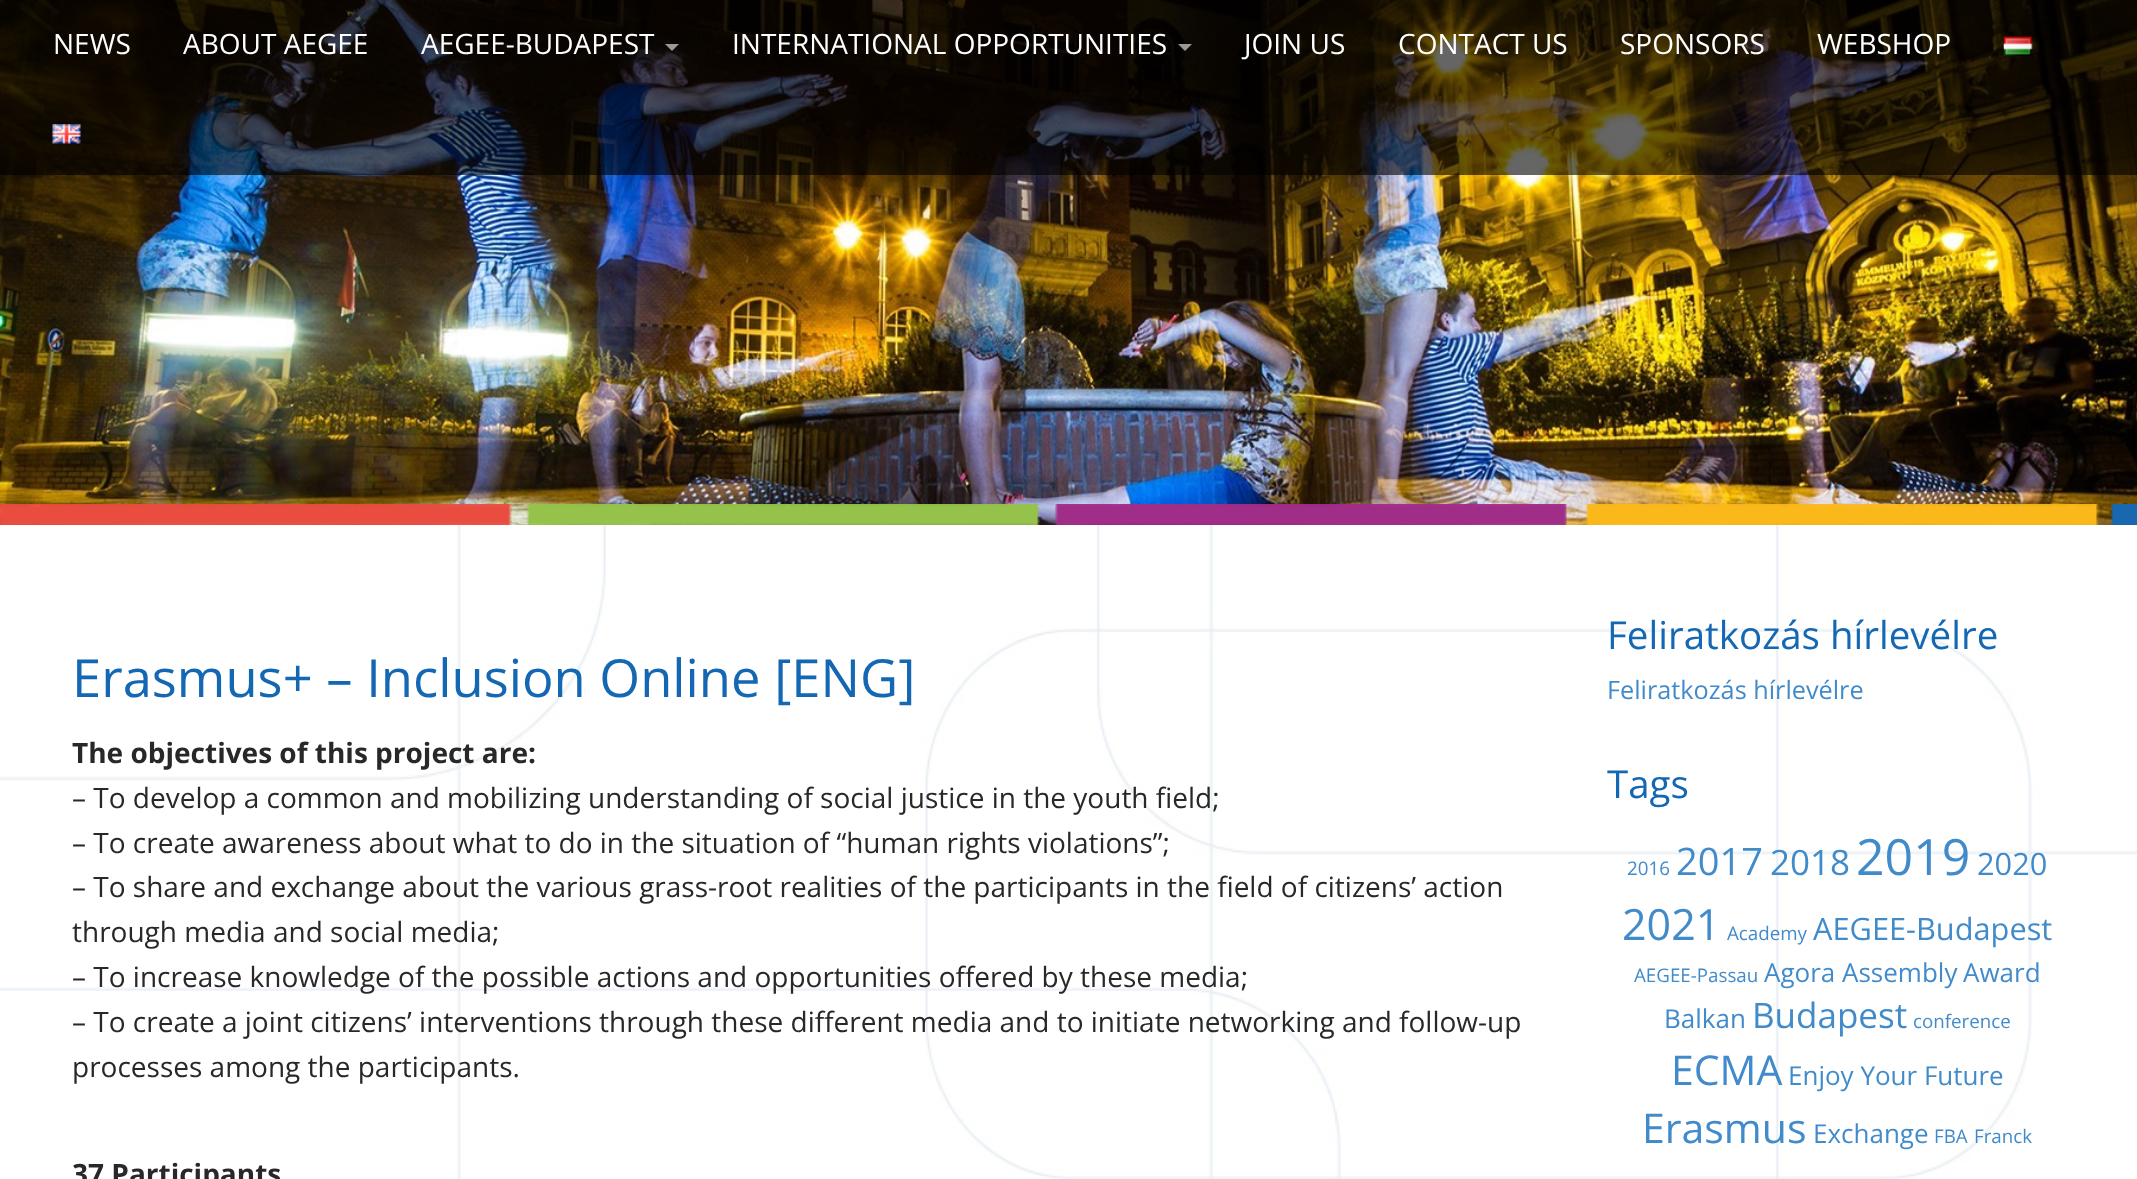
<svg xmlns="http://www.w3.org/2000/svg" width="2137" height="1179">
<rect width="100%" height="100%" fill="#fff"/>
<image x="0" y="525" width="2137" height="654" href="media/1.png"/>
<image x="0" y="0" width="2137" height="525" href="media/2.png"/>
<image x="0" y="504" width="2137" height="21" href="media/3.png"/>
<rect width="2137" height="175" fill="#00000099"/>
<text x="53" y="54" style="font-family:Open Sans;font-size:28px;fill:#fff">NEWS</text>
<text x="183" y="54" style="font-family:Open Sans;font-size:28px;fill:#fff">ABOUT AEGEE</text>
<text x="421" y="54" style="font-family:Open Sans;font-size:28px;fill:#fff">AEGEE-BUDAPEST</text>
<path d="M665 44h14l-7 7z" fill="#999"/>
<text x="732" y="54" style="font-family:Open Sans;font-size:28px;fill:#fff">INTERNATIONAL OPPORTUNITIES</text>
<path d="M1178 44h14l-7 7z" fill="#999"/>
<text x="1244" y="54" style="font-family:Open Sans;font-size:28px;fill:#fff">JOIN US</text>
<text x="1398" y="54" style="font-family:Open Sans;font-size:28px;fill:#fff">CONTACT US</text>
<text x="1620" y="54" style="font-family:Open Sans;font-size:28px;fill:#fff">SPONSORS</text>
<text x="1817" y="54" style="font-family:Open Sans;font-size:28px;fill:#fff">WEBSHOP</text>
<image x="2003" y="36" width="30" height="21" href="media/4.png"/>
<image x="52" y="124" width="29" height="20" href="media/5.png"/>
<text x="72" y="697" style="font-family:Open Sans;font-size:52.5px;fill:#1468b3">Erasmus+ – Inclusion Online [ENG]</text>
<text x="72" y="763" style="font-family:Open Sans;font-size:28px;font-weight:bold;fill:#282828">The objectives of this project are:</text>
<text x="72" y="808" style="font-family:Open Sans;font-size:28px;fill:#282828">– To develop a common and mobilizing understanding of social justice in the youth field;</text>
<text x="72" y="853" style="font-family:Open Sans;font-size:28px;fill:#282828">– To create awareness about what to do in the situation of “human rights violations”;</text>
<text x="72" y="897" style="font-family:Open Sans;font-size:28px;fill:#282828">– To share and exchange about the various grass-root realities of the participants in the field of citizens’ action</text>
<text x="72" y="942" style="font-family:Open Sans;font-size:28px;fill:#282828">through media and social media;</text>
<text x="72" y="987" style="font-family:Open Sans;font-size:28px;fill:#282828">– To increase knowledge of the possible actions and opportunities offered by these media;</text>
<text x="72" y="1032" style="font-family:Open Sans;font-size:28px;fill:#282828">– To create a joint citizens’ interventions through these different media and to initiate networking and follow-up</text>
<text x="72" y="1077" style="font-family:Open Sans;font-size:28px;fill:#282828">processes among the participants.</text>
<text x="72" y="1184" style="font-family:Open Sans;font-size:28px;font-weight:bold;fill:#282828">37 Participants</text>
<text x="1607" y="649" style="font-family:Open Sans;font-size:38.5px;fill:#1468b3">Feliratkozás hírlevélre</text>
<text x="1607" y="699" style="font-family:Open Sans;font-size:25.25px;fill:#428bca">Feliratkozás hírlevélre</text>
<text x="1607" y="798" style="font-family:Open Sans;font-size:38.5px;fill:#1468b3">Tags</text>
<text x="1627" y="875" style="font-family:Open Sans;font-size:18.75px;fill:#428bca">2016</text>
<text x="1676" y="875" style="font-family:Open Sans;font-size:38px;fill:#428bca">2017</text>
<text x="1770" y="875" style="font-family:Open Sans;font-size:35px;fill:#428bca">2018</text>
<text x="1856" y="875" style="font-family:Open Sans;font-size:50px;fill:#428bca">2019</text>
<text x="1977" y="875" style="font-family:Open Sans;font-size:30.75px;fill:#428bca">2020</text>
<text x="1622" y="940" style="font-family:Open Sans;font-size:43px;fill:#428bca">2021</text>
<text x="1727" y="940" style="font-family:Open Sans;font-size:18.75px;fill:#428bca">Academy</text>
<text x="1813" y="940" style="font-family:Open Sans;font-size:30.75px;fill:#428bca">AEGEE-Budapest</text>
<text x="1634" y="982" style="font-family:Open Sans;font-size:18.75px;fill:#428bca">AEGEE-Passau</text>
<text x="1764" y="982" style="font-family:Open Sans;font-size:26px;fill:#428bca">Agora Assembly</text>
<text x="1963" y="982" style="font-family:Open Sans;font-size:26px;fill:#428bca">Award</text>
<text x="1664" y="1028" style="font-family:Open Sans;font-size:26px;fill:#428bca">Balkan</text>
<text x="1752" y="1028" style="font-family:Open Sans;font-size:35px;fill:#428bca">Budapest</text>
<text x="1913" y="1028" style="font-family:Open Sans;font-size:18.75px;fill:#428bca">conference</text>
<text x="1671" y="1085" style="font-family:Open Sans;font-size:41px;fill:#428bca">ECMA</text>
<text x="1788" y="1085" style="font-family:Open Sans;font-size:26px;fill:#428bca">Enjoy Your Future</text>
<text x="1642" y="1143" style="font-family:Open Sans;font-size:41px;fill:#428bca">Erasmus</text>
<text x="1813" y="1143" style="font-family:Open Sans;font-size:26px;fill:#428bca">Exchange</text>
<text x="1934" y="1143" style="font-family:Open Sans;font-size:18.75px;fill:#428bca">FBA</text>
<text x="1974" y="1143" style="font-family:Open Sans;font-size:18.75px;fill:#428bca">Franck</text>
</svg>
